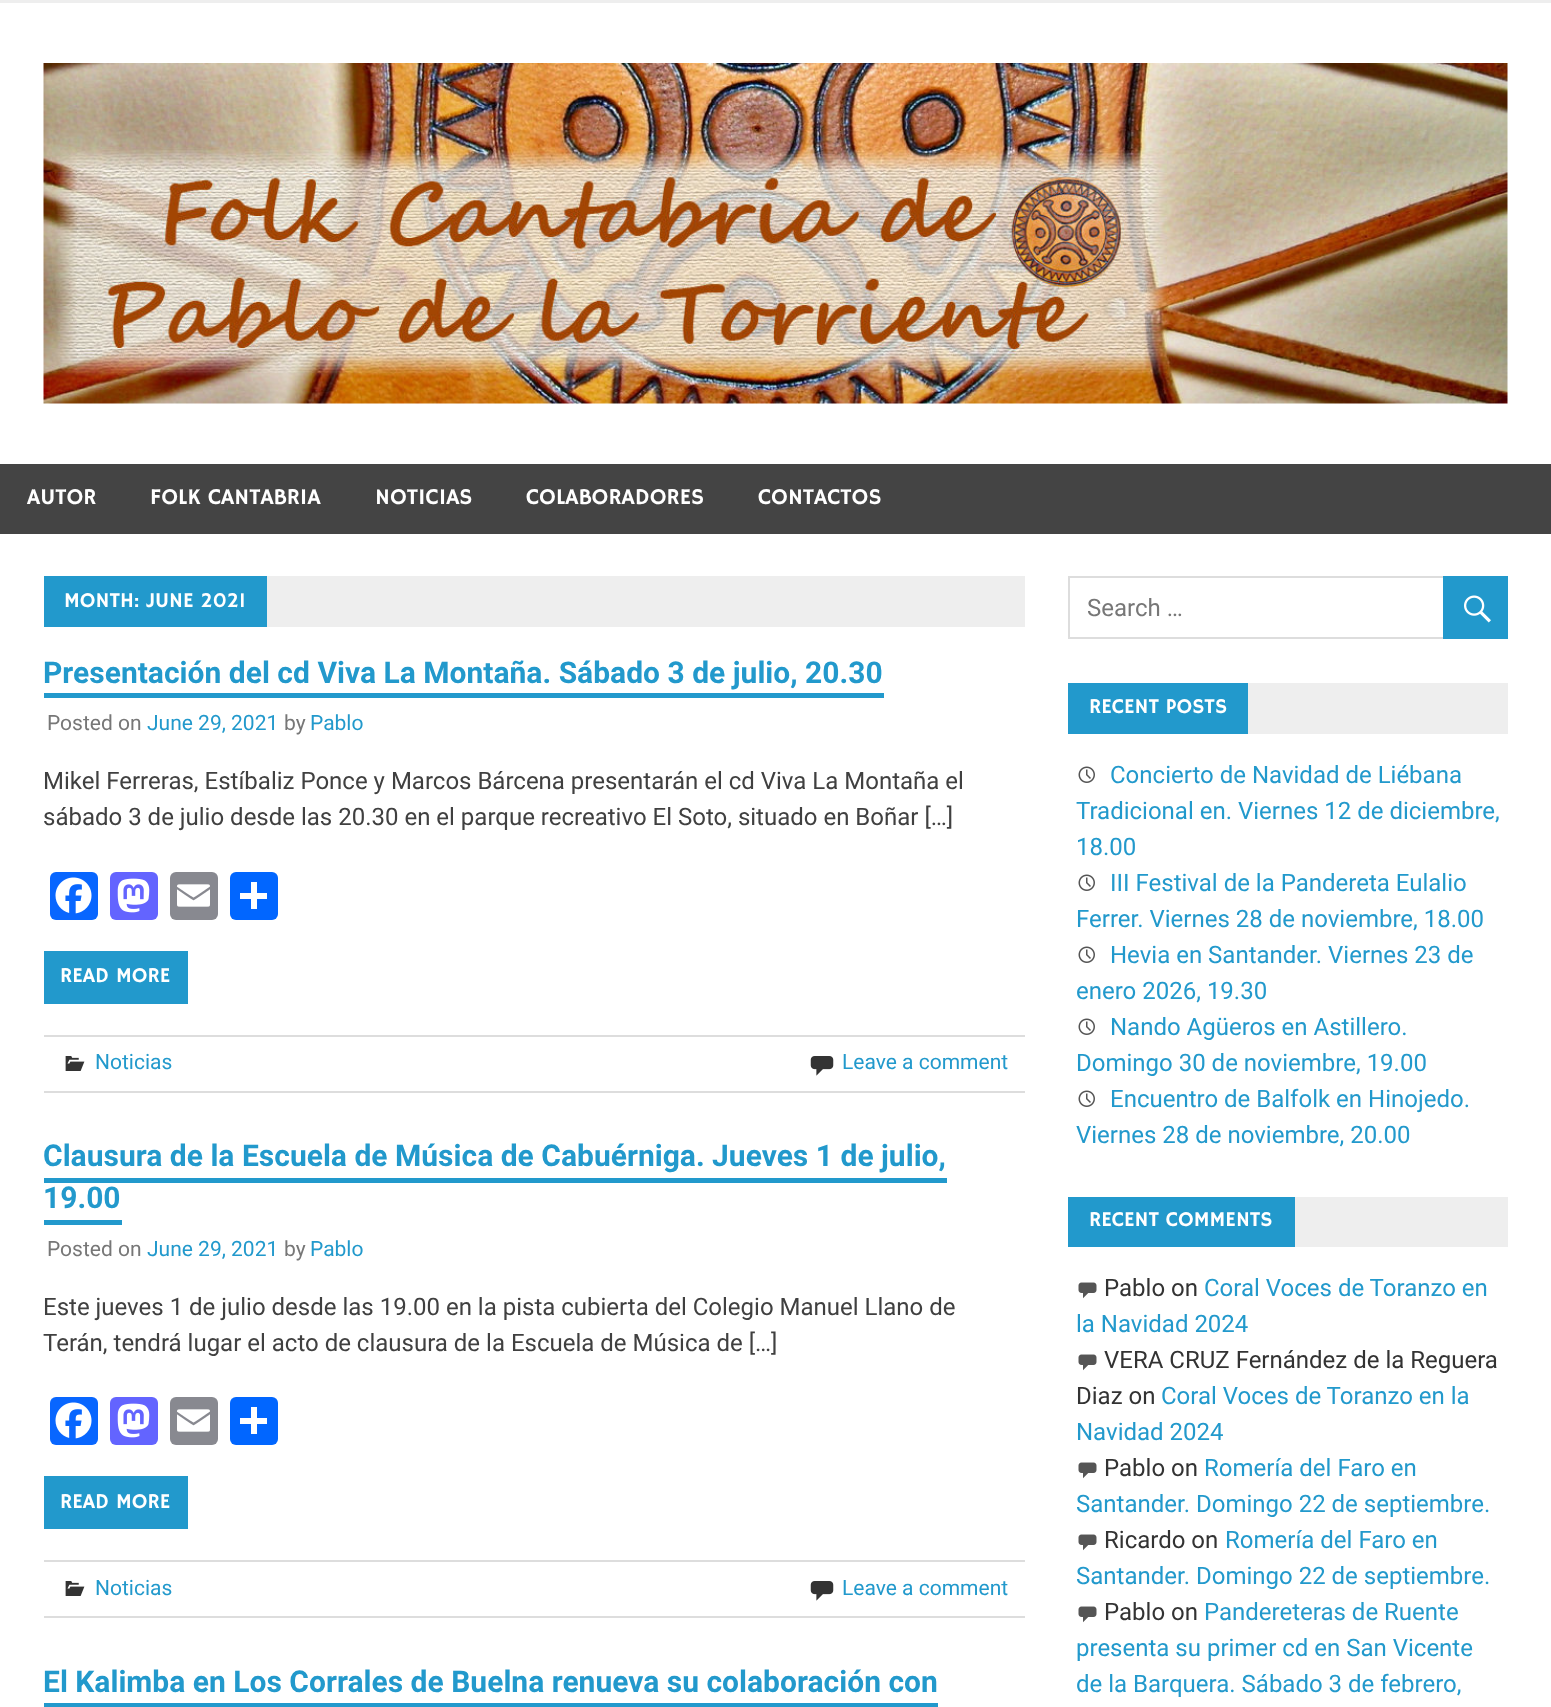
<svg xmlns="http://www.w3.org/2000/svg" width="1551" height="1707">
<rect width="100%" height="100%" fill="#fff"/>
<rect width="1551" height="3" fill="#eee"/>
<image x="43" y="63" width="1465" height="341" href="media/1.png"/>
<rect y="464" width="1551" height="70" fill="#444"/>
<text x="27" y="504" style="font-family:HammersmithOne;font-size:22.5px;fill:#fff">AUTOR</text>
<text x="150" y="504" style="font-family:HammersmithOne;font-size:22.5px;fill:#fff">FOLK CANTABRIA</text>
<text x="375" y="504" style="font-family:HammersmithOne;font-size:22.5px;fill:#fff">NOTICIAS</text>
<text x="526" y="504" style="font-family:HammersmithOne;font-size:22.5px;fill:#fff">COLABORADORES</text>
<text x="758" y="504" style="font-family:HammersmithOne;font-size:22.5px;fill:#fff">CONTACTOS</text>
<rect x="267" y="576" width="758" height="51" fill="#eee"/>
<rect x="44" y="576" width="223" height="51" fill="#29c"/>
<text x="64" y="607" style="font-family:HammersmithOne;font-size:21px;fill:#fff">MONTH: JUNE 2021</text>
<text x="43" y="683" style="font-family:Roboto;font-size:30px;font-weight:bold;fill:#29c">Presentación del cd Viva La Montaña. Sábado 3 de julio, 20.30</text>
<rect x="44" y="693" width="840" height="5" fill="#29c"/>
<text x="47" y="730" style="font-family:Roboto;font-size:21px;fill:#777">Posted on</text>
<text x="147" y="730" style="font-family:Roboto;font-size:21px;fill:#29c">June 29, 2021</text>
<text x="284" y="730" style="font-family:Roboto;font-size:21px;fill:#777">by</text>
<text x="310" y="730" style="font-family:Roboto;font-size:21px;fill:#29c">Pablo</text>
<text x="43" y="789" style="font-family:Roboto;font-size:24px;fill:#404040">Mikel Ferreras, Estíbaliz Ponce y Marcos Bárcena presentarán el cd Viva La Montaña el</text>
<text x="43" y="825" style="font-family:Roboto;font-size:24px;fill:#404040">sábado 3 de julio desde las 20.30 en el parque recreativo El Soto, situado en Boñar […]</text>
<rect x="50" y="872" width="48" height="48" rx="6" fill="#0866ff"/>
<image x="55" y="877" width="37" height="37" href="media/2.png"/>
<rect x="110" y="872" width="48" height="48" rx="6" fill="#6364ff"/>
<image x="117" y="878" width="33" height="35" href="media/3.png"/>
<rect x="170" y="872" width="48" height="48" rx="6" fill="#888990"/>
<image x="177" y="884" width="33" height="23" href="media/4.png"/>
<rect x="230" y="872" width="48" height="48" rx="6" fill="#0166ff"/>
<rect x="251" y="882" width="6" height="27" fill="#fff"/>
<rect x="240" y="893" width="27" height="6" fill="#fff"/>
<rect x="44" y="951" width="144" height="53" fill="#29c"/>
<text x="60" y="982" style="font-family:HammersmithOne;font-size:21px;fill:#fff">READ MORE</text>
<rect x="44" y="1035" width="981" height="2" fill="#ddd"/>
<rect x="44" y="1091" width="981" height="2" fill="#ddd"/>
<image x="65" y="1056" width="20" height="15" href="media/5.png"/>
<text x="95" y="1069" style="font-family:Roboto;font-size:21px;fill:#29c">Noticias</text>
<image x="810" y="1056" width="24" height="20" href="media/6.png"/>
<text x="842" y="1069" style="font-family:Roboto;font-size:21px;fill:#29c">Leave a comment</text>
<text x="43" y="1166" style="font-family:Roboto;font-size:30px;font-weight:bold;fill:#29c">Clausura de la Escuela de Música de Cabuérniga. Jueves 1 de julio,</text>
<text x="43" y="1208" style="font-family:Roboto;font-size:30px;font-weight:bold;fill:#29c">19.00</text>
<rect x="44" y="1178" width="903" height="5" fill="#29c"/>
<rect x="44" y="1220" width="78" height="5" fill="#29c"/>
<text x="47" y="1256" style="font-family:Roboto;font-size:21px;fill:#777">Posted on</text>
<text x="147" y="1256" style="font-family:Roboto;font-size:21px;fill:#29c">June 29, 2021</text>
<text x="284" y="1256" style="font-family:Roboto;font-size:21px;fill:#777">by</text>
<text x="310" y="1256" style="font-family:Roboto;font-size:21px;fill:#29c">Pablo</text>
<text x="43" y="1315" style="font-family:Roboto;font-size:24px;fill:#404040">Este jueves 1 de julio desde las 19.00 en la pista cubierta del Colegio Manuel Llano de</text>
<text x="43" y="1351" style="font-family:Roboto;font-size:24px;fill:#404040">Terán, tendrá lugar el acto de clausura de la Escuela de Música de […]</text>
<rect x="50" y="1397" width="48" height="48" rx="6" fill="#0866ff"/>
<image x="55" y="1402" width="37" height="37" href="media/2.png"/>
<rect x="110" y="1397" width="48" height="48" rx="6" fill="#6364ff"/>
<image x="117" y="1403" width="33" height="35" href="media/3.png"/>
<rect x="170" y="1397" width="48" height="48" rx="6" fill="#888990"/>
<image x="177" y="1409" width="33" height="23" href="media/4.png"/>
<rect x="230" y="1397" width="48" height="48" rx="6" fill="#0166ff"/>
<rect x="251" y="1407" width="6" height="27" fill="#fff"/>
<rect x="240" y="1418" width="27" height="6" fill="#fff"/>
<rect x="44" y="1476" width="144" height="53" fill="#29c"/>
<text x="60" y="1508" style="font-family:HammersmithOne;font-size:21px;fill:#fff">READ MORE</text>
<rect x="44" y="1560" width="981" height="2" fill="#ddd"/>
<rect x="44" y="1616" width="981" height="2" fill="#ddd"/>
<image x="65" y="1581" width="20" height="15" href="media/5.png"/>
<text x="95" y="1595" style="font-family:Roboto;font-size:21px;fill:#29c">Noticias</text>
<image x="810" y="1581" width="24" height="20" href="media/6.png"/>
<text x="842" y="1595" style="font-family:Roboto;font-size:21px;fill:#29c">Leave a comment</text>
<text x="43" y="1692" style="font-family:Roboto;font-size:30px;font-weight:bold;fill:#29c">El Kalimba en Los Corrales de Buelna renueva su colaboración con</text>
<rect x="44" y="1703" width="894" height="4" fill="#29c"/>
<rect x="1069" y="577" width="438" height="61" fill="none" stroke="#ddd" stroke-width="2"/>
<text x="1087" y="616" style="font-family:Roboto;font-size:24px;fill:#777">Search …</text>
<rect x="1443" y="576" width="65" height="63" fill="#29c"/>
<image x="1464" y="595" width="27" height="28" href="media/7.png"/>
<rect x="1248" y="683" width="260" height="51" fill="#eee"/>
<rect x="1068" y="683" width="180" height="51" fill="#29c"/>
<text x="1089" y="713" style="font-family:HammersmithOne;font-size:21px;fill:#fff">RECENT POSTS</text>
<image x="1078" y="766" width="17" height="17" href="media/8.png"/>
<text x="1110" y="783" style="font-family:Roboto;font-size:24px;fill:#29c">Concierto de Navidad de Liébana</text>
<text x="1076" y="819" style="font-family:Roboto;font-size:24px;fill:#29c">Tradicional en. Viernes 12 de diciembre,</text>
<text x="1076" y="855" style="font-family:Roboto;font-size:24px;fill:#29c">18.00</text>
<image x="1078" y="874" width="17" height="17" href="media/8.png"/>
<text x="1110" y="891" style="font-family:Roboto;font-size:24px;fill:#29c">III Festival de la Pandereta Eulalio</text>
<text x="1076" y="927" style="font-family:Roboto;font-size:24px;fill:#29c">Ferrer. Viernes 28 de noviembre, 18.00</text>
<image x="1078" y="946" width="17" height="17" href="media/8.png"/>
<text x="1110" y="963" style="font-family:Roboto;font-size:24px;fill:#29c">Hevia en Santander. Viernes 23 de</text>
<text x="1076" y="999" style="font-family:Roboto;font-size:24px;fill:#29c">enero 2026, 19.30</text>
<image x="1078" y="1018" width="17" height="17" href="media/8.png"/>
<text x="1110" y="1035" style="font-family:Roboto;font-size:24px;fill:#29c">Nando Agüeros en Astillero.</text>
<text x="1076" y="1071" style="font-family:Roboto;font-size:24px;fill:#29c">Domingo 30 de noviembre, 19.00</text>
<image x="1078" y="1090" width="17" height="17" href="media/8.png"/>
<text x="1110" y="1107" style="font-family:Roboto;font-size:24px;fill:#29c">Encuentro de Balfolk en Hinojedo.</text>
<text x="1076" y="1143" style="font-family:Roboto;font-size:24px;fill:#29c">Viernes 28 de noviembre, 20.00</text>
<rect x="1295" y="1197" width="213" height="50" fill="#eee"/>
<rect x="1068" y="1197" width="227" height="50" fill="#29c"/>
<text x="1089" y="1226" style="font-family:HammersmithOne;font-size:21px;fill:#fff">RECENT COMMENTS</text>
<image x="1078" y="1282" width="19" height="17" href="media/9.png"/>
<text x="1104" y="1296" style="font-family:Roboto;font-size:24px;fill:#333">Pablo on</text>
<text x="1204" y="1296" style="font-family:Roboto;font-size:24px;fill:#29c">Coral Voces de Toranzo en</text>
<text x="1076" y="1332" style="font-family:Roboto;font-size:24px;fill:#29c">la Navidad 2024</text>
<image x="1078" y="1354" width="19" height="17" href="media/9.png"/>
<text x="1104" y="1368" style="font-family:Roboto;font-size:24px;fill:#333">VERA CRUZ Fernández de la Reguera</text>
<text x="1076" y="1404" style="font-family:Roboto;font-size:24px;fill:#333">Diaz on</text>
<text x="1161" y="1404" style="font-family:Roboto;font-size:24px;fill:#29c">Coral Voces de Toranzo en la</text>
<text x="1076" y="1440" style="font-family:Roboto;font-size:24px;fill:#29c">Navidad 2024</text>
<image x="1078" y="1462" width="19" height="17" href="media/9.png"/>
<text x="1104" y="1476" style="font-family:Roboto;font-size:24px;fill:#333">Pablo on</text>
<text x="1204" y="1476" style="font-family:Roboto;font-size:24px;fill:#29c">Romería del Faro en</text>
<text x="1076" y="1512" style="font-family:Roboto;font-size:24px;fill:#29c">Santander. Domingo 22 de septiembre.</text>
<image x="1078" y="1534" width="19" height="17" href="media/9.png"/>
<text x="1104" y="1548" style="font-family:Roboto;font-size:24px;fill:#333">Ricardo on</text>
<text x="1225" y="1548" style="font-family:Roboto;font-size:24px;fill:#29c">Romería del Faro en</text>
<text x="1076" y="1584" style="font-family:Roboto;font-size:24px;fill:#29c">Santander. Domingo 22 de septiembre.</text>
<image x="1078" y="1606" width="19" height="17" href="media/9.png"/>
<text x="1104" y="1620" style="font-family:Roboto;font-size:24px;fill:#333">Pablo on</text>
<text x="1204" y="1620" style="font-family:Roboto;font-size:24px;fill:#29c">Pandereteras de Ruente</text>
<text x="1076" y="1656" style="font-family:Roboto;font-size:24px;fill:#29c">presenta su primer cd en San Vicente</text>
<text x="1076" y="1692" style="font-family:Roboto;font-size:24px;fill:#29c">de la Barquera. Sábado 3 de febrero,</text>
</svg>
